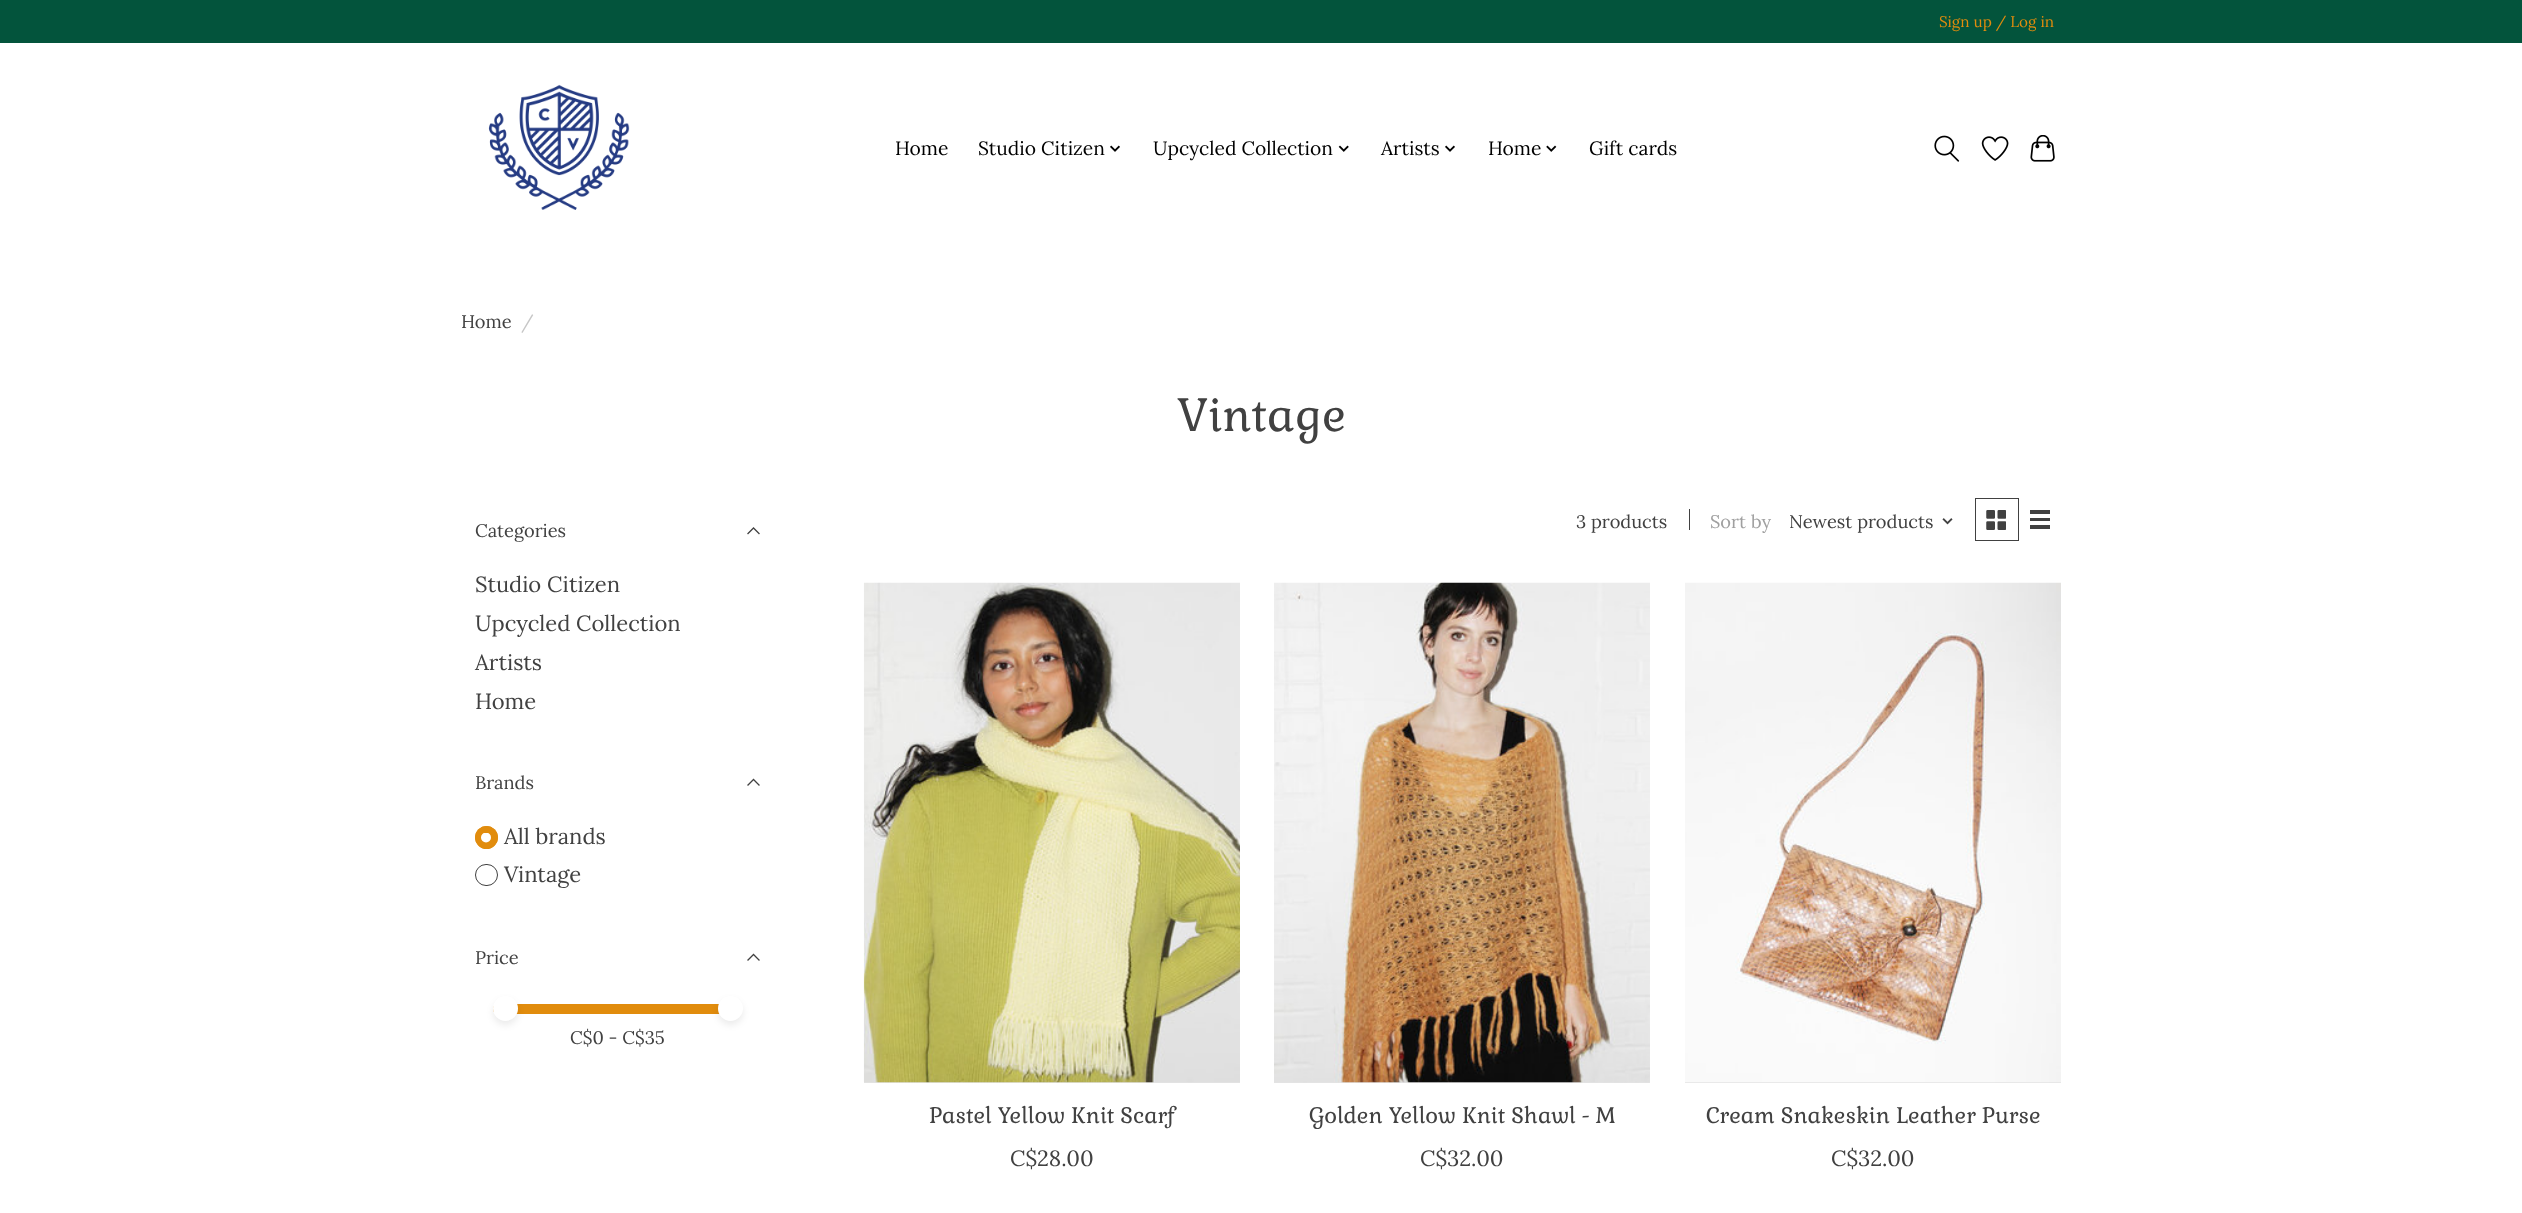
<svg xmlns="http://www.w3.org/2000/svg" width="2522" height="1213">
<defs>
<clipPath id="clip1"><rect x="481" y="833" width="10" height="10"/></clipPath>
</defs>
<rect width="100%" height="100%" fill="#fff"/>
<rect width="2522" height="43" fill="#03543c"/>
<text x="1939" y="27" style="font-family:Lora;font-size:15.25px;fill:#e18c0d">Sign up / Log in</text>
<image x="488" y="84" width="142" height="126" href="media/1.png"/>
<text x="895" y="155" style="font-family:Lora;font-size:19.25px;fill:#000">Home</text>
<text x="978" y="155" style="font-family:Lora;font-size:19.25px;fill:#000">Studio Citizen</text>
<image x="1110" y="145" width="10" height="7" href="media/2.png"/>
<text x="1153" y="155" style="font-family:Lora;font-size:19.25px;fill:#000">Upcycled Collection</text>
<image x="1338" y="145" width="11" height="7" href="media/3.png"/>
<text x="1381" y="155" style="font-family:Lora;font-size:19.25px;fill:#000">Artists</text>
<image x="1445" y="145" width="10" height="7" href="media/2.png"/>
<text x="1488" y="155" style="font-family:Lora;font-size:19.25px;fill:#000">Home</text>
<image x="1546" y="145" width="11" height="7" href="media/4.png"/>
<text x="1589" y="155" style="font-family:Lora;font-size:19.25px;fill:#000">Gift cards</text>
<image x="1934" y="135" width="26" height="27" href="media/5.png"/>
<image x="1981" y="136" width="28" height="25" href="media/6.png"/>
<image x="2030" y="135" width="25" height="27" href="media/7.png"/>
<text x="461" y="328" style="font-family:Lora;font-size:18.25px;fill:#414141">Home</text>
<text x="521" y="328" style="font-family:Lora;font-size:18.25px;fill:#c6c6c6">/</text>
<text x="1177" y="431" style="font-family:Gabriela;font-size:45.5px;fill:#414141">Vintage</text>
<text x="475" y="537" style="font-family:Lora;font-size:18.25px;fill:#414141">Categories</text>
<path d="M748 533.5l5.5-5.5m5.5 5.5l-5.5-5.5" fill="none" stroke="#414141" stroke-width="1.3" stroke-linecap="square"/>
<text x="475" y="592" style="font-family:Lora;font-size:22px;fill:#414141">Studio Citizen</text>
<text x="475" y="631" style="font-family:Lora;font-size:22px;fill:#414141">Upcycled Collection</text>
<text x="475" y="670" style="font-family:Lora;font-size:22px;fill:#414141">Artists</text>
<text x="475" y="709" style="font-family:Lora;font-size:22px;fill:#414141">Home</text>
<text x="475" y="789" style="font-family:Lora;font-size:18.25px;fill:#414141">Brands</text>
<path d="M748 785l5.5-5.5m5.5 5.5l-5.5-5.5" fill="none" stroke="#414141" stroke-width="1.3" stroke-linecap="square"/>
<circle cx="486.5" cy="837.5" r="11.5" fill="#e18c0d"/>
<g clip-path="url(#clip1)">
<circle cx="486" cy="837.5" r="5" fill="#fff"/>
</g>
<circle cx="486.5" cy="837.5" r="11" fill="none" stroke="#e18c0d"/>
<text x="504" y="844" style="font-family:Lora;font-size:22px;fill:#414141">All brands</text>
<rect x="475.5" y="864.5" width="22" height="21" rx="10.5" fill="none" stroke="#414141"/>
<text x="504" y="882" style="font-family:Lora;font-size:22px;fill:#414141">Vintage</text>
<text x="475" y="964" style="font-family:Lora;font-size:18.25px;fill:#414141">Price</text>
<path d="M748 960l5.5-5.5m5.5 5.5l-5.5-5.5" fill="none" stroke="#414141" stroke-width="1.3" stroke-linecap="square"/>
<path d="M498 1004h232v10h-232c-3 0-5-2-5-5c0-3 2-5 5-5z" fill="#e18c0d"/>
<rect x="493" y="1000" width="25" height="25" rx="12.5" fill="#00000014" filter="blur(3.5px)"/>
<circle cx="505.5" cy="1008.5" r="12.5" fill="#fff"/>
<rect x="718" y="1000" width="25" height="25" rx="12.5" fill="#00000014" filter="blur(3.5px)"/>
<circle cx="730.5" cy="1008.5" r="12.5" fill="#fff"/>
<text x="570" y="1044" style="font-family:Lora;font-size:18.25px;fill:#414141">C$0 - C$35</text>
<text x="1576" y="528" style="font-family:Lora;font-size:18.25px;fill:#414141">3 products</text>
<rect x="1689" y="509" width="1" height="21" fill="#414141"/>
<text x="1710" y="528" style="font-family:Lora;font-size:18.25px;fill:#a0a0a0">Sort by</text>
<text x="1789" y="528" style="font-family:Lora;font-size:18.25px;fill:#414141">Newest products</text>
<image x="1942" y="518" width="11" height="7" href="media/8.png"/>
<rect x="1975.5" y="498.5" width="43" height="42" fill="none" stroke="#414141"/>
<image x="1986" y="510" width="20" height="20" href="media/9.png"/>
<rect x="2030" y="510" width="20" height="4" fill="#414141"/>
<rect x="2030" y="518" width="20" height="3" fill="#414141"/>
<rect x="2030" y="525" width="20" height="4" fill="#414141"/>
<rect x="864" y="1082" width="376" height="1" fill="#e3e3e3"/>
<image x="863" y="582" width="377" height="501" href="media/10.png"/>
<text x="929" y="1123" style="font-family:Gabriela;font-size:22px;fill:#414141">Pastel Yellow Knit Scarf</text>
<text x="1010" y="1166" style="font-family:Lora;font-size:22px;fill:#414141">C$28.00</text>
<rect x="1274" y="1082" width="376" height="1" fill="#e3e3e3"/>
<image x="1274" y="582" width="376" height="501" href="media/11.png"/>
<text x="1309" y="1123" style="font-family:Gabriela;font-size:22px;fill:#414141">Golden Yellow Knit Shawl - M</text>
<text x="1420" y="1166" style="font-family:Lora;font-size:22px;fill:#414141">C$32.00</text>
<rect x="1685" y="1082" width="376" height="1" fill="#e3e3e3"/>
<image x="1685" y="582" width="376" height="501" href="media/12.png"/>
<text x="1706" y="1123" style="font-family:Gabriela;font-size:22px;fill:#414141">Cream Snakeskin Leather Purse</text>
<text x="1831" y="1166" style="font-family:Lora;font-size:22px;fill:#414141">C$32.00</text>
</svg>
